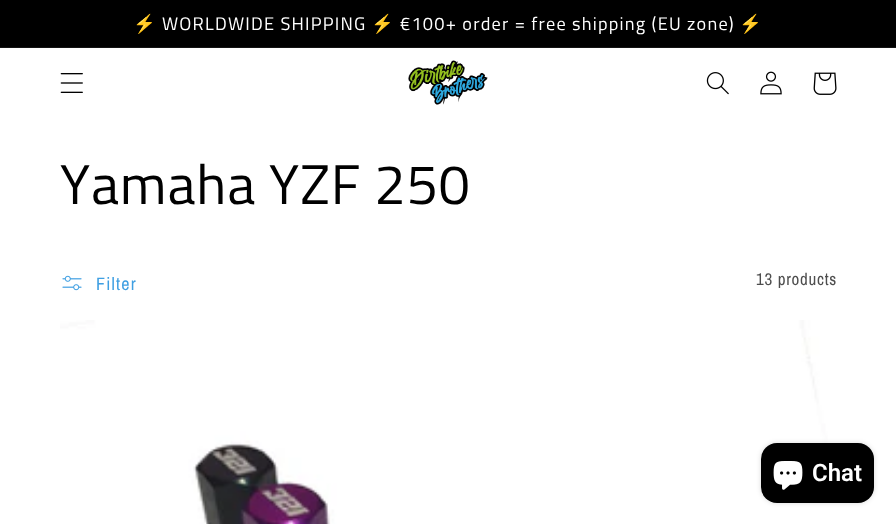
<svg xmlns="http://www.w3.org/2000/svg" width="896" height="524">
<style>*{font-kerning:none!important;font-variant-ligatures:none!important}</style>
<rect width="100%" height="100%" fill="#fff"/>
<rect width="896" height="47" fill="#000"/>
<rect y="47" width="896" height="1" fill="#141414"/>
<text x="133" y="30" style="font-family:Noto Color Emoji;font-size:18.25px;letter-spacing:1.2px;fill:#fff">⚡</text>
<text x="162" y="30" style="font-family:Titillium Web;font-size:18.25px;letter-spacing:1.2px;fill:#fff">WORLDWIDE SHIPPING</text>
<text x="371" y="30" style="font-family:Noto Color Emoji;font-size:18.25px;letter-spacing:1.2px;fill:#fff">⚡</text>
<text x="400" y="30" style="font-family:Titillium Web;font-size:18.25px;letter-spacing:1.2px;fill:#fff">€100+ order = free shipping (EU zone)</text>
<text x="739" y="30" style="font-family:Noto Color Emoji;font-size:18.25px;letter-spacing:1.2px;fill:#fff">⚡</text>
<image x="60" y="73" width="23" height="20" href="media/1.png"/>
<image x="408" y="60" width="80" height="45" href="media/2.png"/>
<image x="706" y="72" width="23" height="23" href="media/3.png"/>
<image x="760" y="71" width="22" height="24" href="media/4.png"/>
<image x="813" y="72" width="24" height="23" href="media/5.png"/>
<text x="60" y="204" style="font-family:Titillium Web;font-size:56px;letter-spacing:0.8px;fill:#000">Yamaha YZF 250</text>
<image x="62" y="275" width="20" height="16" href="media/6.png"/>
<text x="96" y="290" style="font-family:Archivo Narrow;font-size:18px;letter-spacing:1.2px;fill:#3f9fe2">Filter</text>
<text x="756" y="285" style="font-family:Archivo Narrow;font-size:17px;letter-spacing:0.75px;fill:#4d4d4d">13 products</text>
<image x="60" y="320" width="774" height="204" href="media/7.png"/>
<rect x="761" y="443" width="113" height="60" rx="16" fill="#00000026" filter="blur(2.5px)"/>
<rect x="761" y="443" width="113" height="60" rx="16" fill="#000"/>
<image x="773" y="461" width="30" height="29" href="media/8.png"/>
<text x="812" y="481" style="font-family:Roboto;font-size:24px;font-weight:600;fill:#fff">Chat</text>
</svg>
